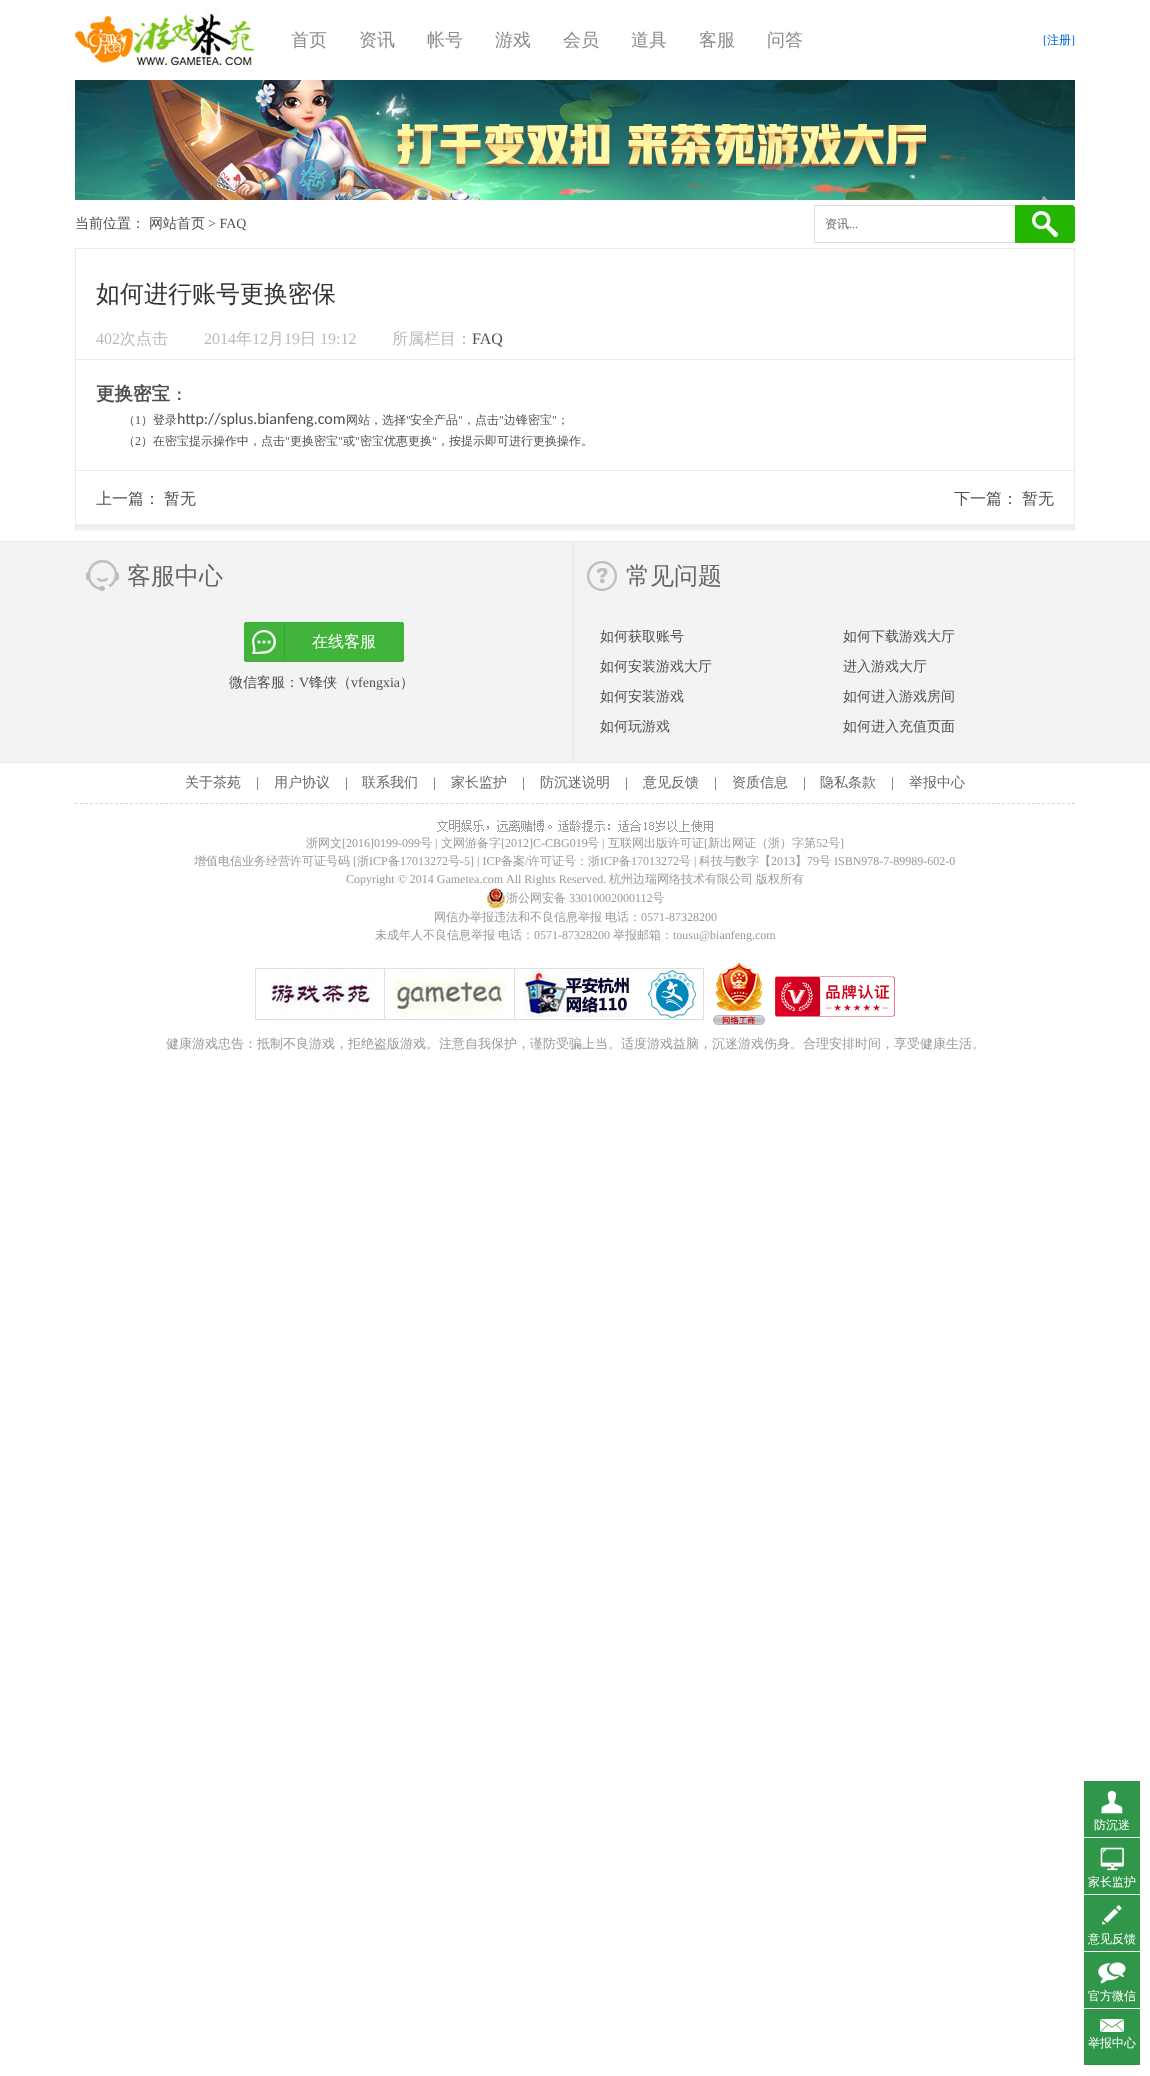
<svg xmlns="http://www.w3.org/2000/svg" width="1150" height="2076">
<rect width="100%" height="100%" fill="#fff"/>
<image x="75" y="8" width="180" height="64" href="media/1.png"/>
<text x="291" y="46" style="font-family:WenQuanYi Zen Hei;font-size:18px;font-weight:500;fill:#8c8a8a">首页</text>
<text x="359" y="46" style="font-family:WenQuanYi Zen Hei;font-size:18px;font-weight:500;fill:#8c8a8a">资讯</text>
<text x="427" y="46" style="font-family:WenQuanYi Zen Hei;font-size:18px;font-weight:500;fill:#8c8a8a">帐号</text>
<text x="495" y="46" style="font-family:WenQuanYi Zen Hei;font-size:18px;font-weight:500;fill:#8c8a8a">游戏</text>
<text x="563" y="46" style="font-family:WenQuanYi Zen Hei;font-size:18px;font-weight:500;fill:#8c8a8a">会员</text>
<text x="631" y="46" style="font-family:WenQuanYi Zen Hei;font-size:18px;font-weight:500;fill:#8c8a8a">道具</text>
<text x="699" y="46" style="font-family:WenQuanYi Zen Hei;font-size:18px;font-weight:500;fill:#8c8a8a">客服</text>
<text x="767" y="46" style="font-family:WenQuanYi Zen Hei;font-size:18px;font-weight:500;fill:#8c8a8a">问答</text>
<text x="1043" y="44" style="font-family:Liberation Serif;font-size:12px;fill:#06d">[</text>
<text x="1047" y="44" style="font-family:WenQuanYi Zen Hei;font-size:12px;font-weight:500;fill:#06d">注册</text>
<text x="1071" y="44" style="font-family:Liberation Serif;font-size:12px;fill:#06d">]</text>
<image x="75" y="80" width="1000" height="120" href="media/2.png"/>
<text x="75" y="228" style="font-family:WenQuanYi Zen Hei;font-size:14px;font-weight:500;fill:#505050">当前位置：</text>
<text x="149" y="228" style="font-family:WenQuanYi Zen Hei;font-size:14px;font-weight:500;fill:#505050">网站首页</text>
<text x="208" y="228" style="font-family:Liberation Serif;font-size:14px;fill:#505050">&gt; FAQ</text>
<rect x="814" y="205" width="201" height="1" fill="#ddd"/>
<rect x="814" y="242" width="201" height="1" fill="#ddd"/>
<rect x="814" y="205" width="1" height="38" fill="#ddd"/>
<text x="825" y="228" style="font-family:WenQuanYi Zen Hei;font-size:12px;font-weight:500;fill:#666">资讯</text>
<text x="849" y="228" style="font-family:Liberation Serif;font-size:12px;fill:#666">...</text>
<image x="1015" y="205" width="60" height="38" href="media/3.png"/>
<image x="76" y="524" width="998" height="7" href="media/4.png"/>
<rect x="75" y="248" width="1000" height="1" fill="#ebebeb"/>
<rect x="1074" y="248" width="1" height="283" fill="#ebebeb"/>
<rect x="75" y="248" width="1" height="283" fill="#ebebeb"/>
<text x="96" y="302" style="font-family:WenQuanYi Zen Hei;font-size:24px;font-weight:500;fill:#333">如何进行账号更换密保</text>
<rect x="76" y="359" width="998" height="1" fill="#ebebeb"/>
<text x="96" y="344" style="font-family:Liberation Serif;font-size:16px;fill:#bababa">402</text>
<text x="120" y="344" style="font-family:WenQuanYi Zen Hei;font-size:16px;font-weight:500;fill:#bababa">次点击</text>
<text x="204" y="344" style="font-family:Liberation Serif;font-size:16px;fill:#bababa">2014</text>
<text x="236" y="344" style="font-family:WenQuanYi Zen Hei;font-size:16px;font-weight:500;fill:#bababa">年</text>
<text x="252" y="344" style="font-family:Liberation Serif;font-size:16px;fill:#bababa">12</text>
<text x="268" y="344" style="font-family:WenQuanYi Zen Hei;font-size:16px;font-weight:500;fill:#bababa">月</text>
<text x="284" y="344" style="font-family:Liberation Serif;font-size:16px;fill:#bababa">19</text>
<text x="300" y="344" style="font-family:WenQuanYi Zen Hei;font-size:16px;font-weight:500;fill:#bababa">日</text>
<text x="320" y="344" style="font-family:Liberation Serif;font-size:16px;fill:#bababa">19:12</text>
<text x="392" y="344" style="font-family:WenQuanYi Zen Hei;font-size:16px;font-weight:500;fill:#bababa">所属栏目：</text>
<text x="472" y="344" style="font-family:Liberation Serif;font-size:16px;fill:#505050">FAQ</text>
<text x="96" y="400" style="font-family:WenQuanYi Zen Hei;font-size:18.5px;font-weight:bold;fill:#505050">更换密宝</text>
<text x="171" y="400" style="font-family:WenQuanYi Zen Hei;font-size:16px;font-weight:bold;fill:#505050">：</text>
<text x="123" y="424" style="font-family:WenQuanYi Zen Hei;font-size:12px;font-weight:500;fill:#505050">（</text>
<text x="135" y="424" style="font-family:Liberation Serif;font-size:12px;fill:#505050">1</text>
<text x="141" y="424" style="font-family:WenQuanYi Zen Hei;font-size:12px;font-weight:500;fill:#505050">）登录</text>
<text x="177" y="424" style="font-family:Carlito;font-size:16px;fill:#505050">http://splus.bianfeng.com</text>
<text x="346" y="424" style="font-family:WenQuanYi Zen Hei;font-size:12px;font-weight:500;fill:#505050">网站，选择</text>
<text x="406" y="424" style="font-family:Liberation Serif;font-size:12px;fill:#505050">"</text>
<text x="410" y="424" style="font-family:WenQuanYi Zen Hei;font-size:12px;font-weight:500;fill:#505050">安全产品</text>
<text x="458" y="424" style="font-family:Liberation Serif;font-size:12px;fill:#505050">"</text>
<text x="463" y="424" style="font-family:WenQuanYi Zen Hei;font-size:12px;font-weight:500;fill:#505050">，点击</text>
<text x="499" y="424" style="font-family:Liberation Serif;font-size:12px;fill:#505050">"</text>
<text x="504" y="424" style="font-family:WenQuanYi Zen Hei;font-size:12px;font-weight:500;fill:#505050">边锋密宝</text>
<text x="552" y="424" style="font-family:Liberation Serif;font-size:12px;fill:#505050">"</text>
<text x="557" y="424" style="font-family:WenQuanYi Zen Hei;font-size:12px;font-weight:500;fill:#505050">；</text>
<text x="123" y="445" style="font-family:WenQuanYi Zen Hei;font-size:12px;font-weight:500;fill:#505050">（</text>
<text x="135" y="445" style="font-family:Liberation Serif;font-size:12px;fill:#505050">2</text>
<text x="141" y="445" style="font-family:WenQuanYi Zen Hei;font-size:12px;font-weight:500;fill:#505050">）在密宝提示操作中，点击</text>
<text x="285" y="445" style="font-family:Liberation Serif;font-size:12px;fill:#505050">"</text>
<text x="290" y="445" style="font-family:WenQuanYi Zen Hei;font-size:12px;font-weight:500;fill:#505050">更换密宝</text>
<text x="338" y="445" style="font-family:Liberation Serif;font-size:12px;fill:#505050">"</text>
<text x="343" y="445" style="font-family:WenQuanYi Zen Hei;font-size:12px;font-weight:500;fill:#505050">或</text>
<text x="355" y="445" style="font-family:Liberation Serif;font-size:12px;fill:#505050">"</text>
<text x="360" y="445" style="font-family:WenQuanYi Zen Hei;font-size:12px;font-weight:500;fill:#505050">密宝优惠更换</text>
<text x="432" y="445" style="font-family:Liberation Serif;font-size:12px;fill:#505050">"</text>
<text x="437" y="445" style="font-family:WenQuanYi Zen Hei;font-size:12px;font-weight:500;fill:#505050">，按提示即可进行更换操作。</text>
<rect x="76" y="470" width="998" height="1" fill="#ebebeb"/>
<text x="96" y="504" style="font-family:WenQuanYi Zen Hei;font-size:16px;font-weight:500;fill:#505050">上一篇：</text>
<text x="164" y="504" style="font-family:WenQuanYi Zen Hei;font-size:16px;font-weight:500;fill:#505050">暂无</text>
<text x="954" y="504" style="font-family:WenQuanYi Zen Hei;font-size:16px;font-weight:500;fill:#505050">下一篇：</text>
<text x="1022" y="504" style="font-family:WenQuanYi Zen Hei;font-size:16px;font-weight:500;fill:#505050">暂无</text>
<rect y="542" width="1150" height="220" fill="#f3f3f3"/>
<rect y="541" width="1150" height="1" fill="#e7e7e7"/>
<rect y="762" width="1150" height="1" fill="#e7e7e7"/>
<image x="84" y="560" width="37" height="37" href="media/5.png"/>
<text x="127" y="584" style="font-family:WenQuanYi Zen Hei;font-size:24px;font-weight:500;fill:#666">客服中心</text>
<image x="244" y="622" width="160" height="40" href="media/6.png"/>
<text x="312" y="647" style="font-family:WenQuanYi Zen Hei;font-size:16px;font-weight:500;fill:#fff">在线客服</text>
<text x="229" y="687" style="font-family:WenQuanYi Zen Hei;font-size:14px;font-weight:500;fill:#505050">微信客服：</text>
<text x="299" y="687" style="font-family:Liberation Serif;font-size:14px;fill:#505050">V</text>
<text x="309" y="687" style="font-family:WenQuanYi Zen Hei;font-size:14px;font-weight:500;fill:#505050">锋侠（</text>
<text x="351" y="687" style="font-family:Liberation Serif;font-size:14px;fill:#505050">vfengxia</text>
<text x="400" y="687" style="font-family:WenQuanYi Zen Hei;font-size:14px;font-weight:500;fill:#505050">）</text>
<rect x="573" y="542" width="1" height="220" fill="#e7e7e7"/>
<image x="586" y="560" width="32" height="33" href="media/7.png"/>
<text x="626" y="584" style="font-family:WenQuanYi Zen Hei;font-size:24px;font-weight:500;fill:#666">常见问题</text>
<text x="600" y="641" style="font-family:WenQuanYi Zen Hei;font-size:14px;font-weight:500;fill:#505050">如何获取账号</text>
<text x="843" y="641" style="font-family:WenQuanYi Zen Hei;font-size:14px;font-weight:500;fill:#505050">如何下载游戏大厅</text>
<text x="600" y="671" style="font-family:WenQuanYi Zen Hei;font-size:14px;font-weight:500;fill:#505050">如何安装游戏大厅</text>
<text x="843" y="671" style="font-family:WenQuanYi Zen Hei;font-size:14px;font-weight:500;fill:#505050">进入游戏大厅</text>
<text x="600" y="701" style="font-family:WenQuanYi Zen Hei;font-size:14px;font-weight:500;fill:#505050">如何安装游戏</text>
<text x="843" y="701" style="font-family:WenQuanYi Zen Hei;font-size:14px;font-weight:500;fill:#505050">如何进入游戏房间</text>
<text x="600" y="731" style="font-family:WenQuanYi Zen Hei;font-size:14px;font-weight:500;fill:#505050">如何玩游戏</text>
<text x="843" y="731" style="font-family:WenQuanYi Zen Hei;font-size:14px;font-weight:500;fill:#505050">如何进入充值页面</text>
<path d="M75 803.5h1000" fill="none" stroke="#d6d6d6" stroke-dasharray="3 2.01"/>
<text x="185" y="787" style="font-family:WenQuanYi Zen Hei;font-size:14px;font-weight:500;fill:#666">关于茶苑</text>
<text x="256" y="787" style="font-family:Liberation Serif;font-size:14px;fill:#5a5a5a">|</text>
<text x="274" y="787" style="font-family:WenQuanYi Zen Hei;font-size:14px;font-weight:500;fill:#666">用户协议</text>
<text x="345" y="787" style="font-family:Liberation Serif;font-size:14px;fill:#5a5a5a">|</text>
<text x="362" y="787" style="font-family:WenQuanYi Zen Hei;font-size:14px;font-weight:500;fill:#666">联系我们</text>
<text x="433" y="787" style="font-family:Liberation Serif;font-size:14px;fill:#5a5a5a">|</text>
<text x="451" y="787" style="font-family:WenQuanYi Zen Hei;font-size:14px;font-weight:500;fill:#666">家长监护</text>
<text x="522" y="787" style="font-family:Liberation Serif;font-size:14px;fill:#5a5a5a">|</text>
<text x="540" y="787" style="font-family:WenQuanYi Zen Hei;font-size:14px;font-weight:500;fill:#666">防沉迷说明</text>
<text x="625" y="787" style="font-family:Liberation Serif;font-size:14px;fill:#5a5a5a">|</text>
<text x="643" y="787" style="font-family:WenQuanYi Zen Hei;font-size:14px;font-weight:500;fill:#666">意见反馈</text>
<text x="714" y="787" style="font-family:Liberation Serif;font-size:14px;fill:#5a5a5a">|</text>
<text x="732" y="787" style="font-family:WenQuanYi Zen Hei;font-size:14px;font-weight:500;fill:#666">资质信息</text>
<text x="803" y="787" style="font-family:Liberation Serif;font-size:14px;fill:#5a5a5a">|</text>
<text x="820" y="787" style="font-family:WenQuanYi Zen Hei;font-size:14px;font-weight:500;fill:#666">隐私条款</text>
<text x="891" y="787" style="font-family:Liberation Serif;font-size:14px;fill:#5a5a5a">|</text>
<text x="909" y="787" style="font-family:WenQuanYi Zen Hei;font-size:14px;font-weight:500;fill:#666">举报中心</text>
<image x="437" y="820" width="276" height="12" href="media/8.png"/>
<text x="306" y="847" style="font-family:WenQuanYi Zen Hei;font-size:12px;font-weight:500;fill:#999">浙网文</text>
<text x="342" y="847" style="font-family:Liberation Serif;font-size:12px;fill:#999">[2016]0199-099</text>
<text x="420" y="847" style="font-family:WenQuanYi Zen Hei;font-size:12px;font-weight:500;fill:#999">号</text>
<text x="435" y="847" style="font-family:Liberation Serif;font-size:12px;fill:#999">|</text>
<text x="441" y="847" style="font-family:WenQuanYi Zen Hei;font-size:12px;font-weight:500;fill:#999">文网游备字</text>
<text x="501" y="847" style="font-family:Liberation Serif;font-size:12px;fill:#999">[2012]C-CBG019</text>
<text x="587" y="847" style="font-family:WenQuanYi Zen Hei;font-size:12px;font-weight:500;fill:#999">号</text>
<text x="602" y="847" style="font-family:Liberation Serif;font-size:12px;fill:#999">|</text>
<text x="608" y="847" style="font-family:WenQuanYi Zen Hei;font-size:12px;font-weight:500;fill:#999">互联网出版许可证</text>
<text x="704" y="847" style="font-family:Liberation Serif;font-size:12px;fill:#999">[</text>
<text x="708" y="847" style="font-family:WenQuanYi Zen Hei;font-size:12px;font-weight:500;fill:#999">新出网证（浙）字第</text>
<text x="816" y="847" style="font-family:Liberation Serif;font-size:12px;fill:#999">52</text>
<text x="828" y="847" style="font-family:WenQuanYi Zen Hei;font-size:12px;font-weight:500;fill:#999">号</text>
<text x="840" y="847" style="font-family:Liberation Serif;font-size:12px;fill:#999">]</text>
<text x="194" y="865" style="font-family:WenQuanYi Zen Hei;font-size:12px;font-weight:500;fill:#999">增值电信业务经营许可证号码</text>
<text x="353" y="865" style="font-family:Liberation Serif;font-size:12px;fill:#999">[</text>
<text x="357" y="865" style="font-family:WenQuanYi Zen Hei;font-size:12px;font-weight:500;fill:#999">浙</text>
<text x="369" y="865" style="font-family:Liberation Serif;font-size:12px;fill:#999">ICP</text>
<text x="388" y="865" style="font-family:WenQuanYi Zen Hei;font-size:12px;font-weight:500;fill:#999">备</text>
<text x="400" y="865" style="font-family:Liberation Serif;font-size:12px;fill:#999">17013272</text>
<text x="448" y="865" style="font-family:WenQuanYi Zen Hei;font-size:12px;font-weight:500;fill:#999">号</text>
<text x="460" y="865" style="font-family:Liberation Serif;font-size:12px;fill:#999">-5] | ICP</text>
<text x="501" y="865" style="font-family:WenQuanYi Zen Hei;font-size:12px;font-weight:500;fill:#999">备案</text>
<text x="525" y="865" style="font-family:Liberation Serif;font-size:12px;fill:#999">/</text>
<text x="528" y="865" style="font-family:WenQuanYi Zen Hei;font-size:12px;font-weight:500;fill:#999">许可证号：浙</text>
<text x="600" y="865" style="font-family:Liberation Serif;font-size:12px;fill:#999">ICP</text>
<text x="619" y="865" style="font-family:WenQuanYi Zen Hei;font-size:12px;font-weight:500;fill:#999">备</text>
<text x="631" y="865" style="font-family:Liberation Serif;font-size:12px;fill:#999">17013272</text>
<text x="679" y="865" style="font-family:WenQuanYi Zen Hei;font-size:12px;font-weight:500;fill:#999">号</text>
<text x="694" y="865" style="font-family:Liberation Serif;font-size:12px;fill:#999">|</text>
<text x="699" y="865" style="font-family:WenQuanYi Zen Hei;font-size:12px;font-weight:500;fill:#999">科技与数字【</text>
<text x="771" y="865" style="font-family:Liberation Serif;font-size:12px;fill:#999">2013</text>
<text x="795" y="865" style="font-family:WenQuanYi Zen Hei;font-size:12px;font-weight:500;fill:#999">】</text>
<text x="807" y="865" style="font-family:Liberation Serif;font-size:12px;fill:#999">79</text>
<text x="819" y="865" style="font-family:WenQuanYi Zen Hei;font-size:12px;font-weight:500;fill:#999">号</text>
<text x="834" y="865" style="font-family:Liberation Serif;font-size:12px;fill:#999">ISBN978-7-89989-602-0</text>
<text x="346" y="883" style="font-family:Liberation Serif;font-size:12px;fill:#999">Copyright © 2014 Gametea.com</text>
<text x="506" y="883" style="font-family:Liberation Serif;font-size:12px;fill:#999">All Rights Reserved.</text>
<text x="609" y="883" style="font-family:WenQuanYi Zen Hei;font-size:12px;font-weight:500;fill:#999">杭州边瑞网络技术有限公司</text>
<text x="756" y="883" style="font-family:WenQuanYi Zen Hei;font-size:12px;font-weight:500;fill:#999">版权所有</text>
<image x="487" y="888" width="18" height="20" href="media/9.png"/>
<text x="506" y="902" style="font-family:WenQuanYi Zen Hei;font-size:12px;font-weight:500;fill:#999">浙公网安备</text>
<text x="569" y="902" style="font-family:Liberation Serif;font-size:12px;fill:#999">33010002000112</text>
<text x="652" y="902" style="font-family:WenQuanYi Zen Hei;font-size:12px;font-weight:500;fill:#999">号</text>
<text x="434" y="921" style="font-family:WenQuanYi Zen Hei;font-size:12px;font-weight:500;fill:#999">网信办举报违法和不良信息举报</text>
<text x="605" y="921" style="font-family:WenQuanYi Zen Hei;font-size:12px;font-weight:500;fill:#999">电话：</text>
<text x="641" y="921" style="font-family:Liberation Serif;font-size:12px;fill:#999">0571-87328200</text>
<text x="375" y="939" style="font-family:WenQuanYi Zen Hei;font-size:12px;font-weight:500;fill:#999">未成年人不良信息举报</text>
<text x="498" y="939" style="font-family:WenQuanYi Zen Hei;font-size:12px;font-weight:500;fill:#999">电话：</text>
<text x="534" y="939" style="font-family:Liberation Serif;font-size:12px;fill:#999">0571-87328200</text>
<text x="613" y="939" style="font-family:WenQuanYi Zen Hei;font-size:12px;font-weight:500;fill:#999">举报邮箱：</text>
<text x="673" y="939" style="font-family:Liberation Serif;font-size:12px;fill:#999">tousu@bianfeng.com</text>
<image x="255" y="968" width="384" height="52" href="media/10.png"/>
<image x="639" y="968" width="65" height="52" href="media/11.png"/>
<image x="713" y="963" width="52" height="62" href="media/12.png"/>
<image x="775" y="976" width="120" height="41" href="media/13.png"/>
<text x="166" y="1048" style="font-family:WenQuanYi Zen Hei;font-size:13px;font-weight:500;fill:#999">健康游戏忠告：抵制不良游戏，拒绝盗版游戏。注意自我保护，谨防受骗上当。适度游戏益脑，沉迷游戏伤身。合理安排时间，享受健康生活。</text>
<image x="1084" y="1781" width="56" height="56" href="media/14.png"/>
<text x="1094" y="1829" style="font-family:WenQuanYi Zen Hei;font-size:12px;font-weight:500;fill:#fff">防沉迷</text>
<image x="1084" y="1838" width="56" height="56" href="media/15.png"/>
<text x="1088" y="1886" style="font-family:WenQuanYi Zen Hei;font-size:12px;font-weight:500;fill:#fff">家长监护</text>
<image x="1084" y="1895" width="56" height="56" href="media/16.png"/>
<text x="1088" y="1943" style="font-family:WenQuanYi Zen Hei;font-size:12px;font-weight:500;fill:#fff">意见反馈</text>
<image x="1084" y="1952" width="56" height="56" href="media/17.png"/>
<text x="1088" y="2000" style="font-family:WenQuanYi Zen Hei;font-size:12px;font-weight:500;fill:#fff">官方微信</text>
<image x="1084" y="2009" width="56" height="56" href="media/18.png"/>
<text x="1088" y="2047" style="font-family:WenQuanYi Zen Hei;font-size:12px;font-weight:500;fill:#fff">举报中心</text>
</svg>
